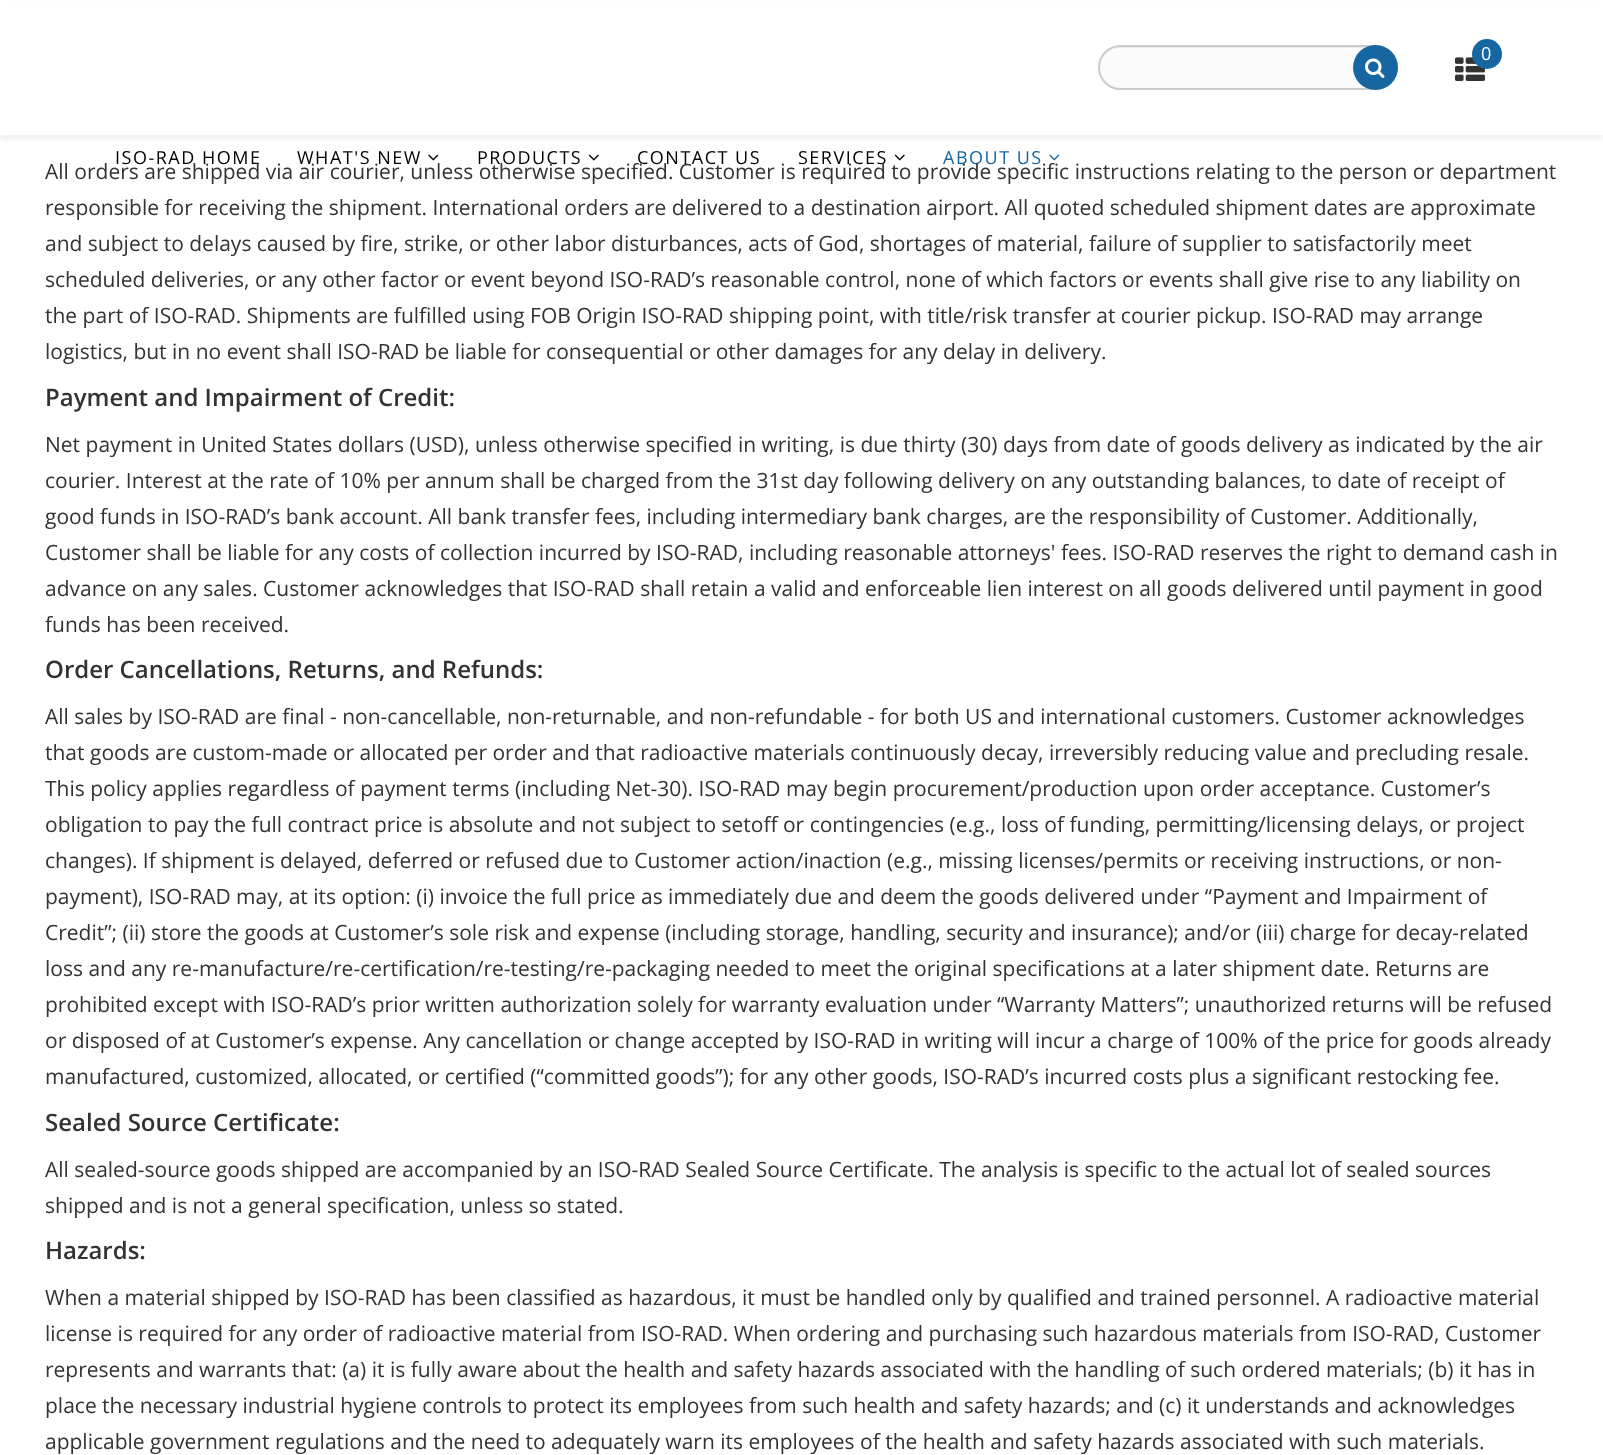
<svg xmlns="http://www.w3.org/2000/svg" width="1603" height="1455">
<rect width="100%" height="100%" fill="#fff"/>
<rect y="5" width="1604" height="135" fill="#0000000d" filter="blur(2px)"/>
<rect y="3" width="1603" height="132" fill="#fff"/>
<rect x="1098" y="45" width="300" height="45" rx="22.5" fill="#fbfbfb"/>
<path d="M1120 48h256c11 0 20 9 20 21c0 4-1 8-3 12c3-5 5-11 4-17c-2-10-11-17-21-17h-212c-15 0-65-10-64 21c0-11 9-20 20-20z" fill="#e8e8e8"/>
<rect x="1099" y="46" width="298" height="43" rx="21.5" fill="none" stroke="#ccc" stroke-width="2"/>
<circle cx="1375.5" cy="67.5" r="22.5" fill="#1566a1"/>
<image x="1365" y="58" width="20" height="20" href="media/1.png"/>
<image x="1455" y="57" width="30" height="24" href="media/2.png"/>
<circle cx="1487" cy="54" r="15" fill="#1566a1"/>
<text x="1481" y="60" style="font-family:Open Sans;font-size:18px;letter-spacing:1.5px;fill:#fff">0</text>
<text x="115" y="164" style="font-family:Open Sans;font-size:18px;letter-spacing:1.5px;fill:#000">ISO-RAD HOME</text>
<text x="297" y="164" style="font-family:Open Sans;font-size:18px;letter-spacing:1.5px;fill:#000">WHAT'S NEW</text>
<image x="428" y="154" width="11" height="7" href="media/3.png"/>
<text x="477" y="164" style="font-family:Open Sans;font-size:18px;letter-spacing:1.5px;fill:#000">PRODUCTS</text>
<image x="588" y="154" width="11" height="7" href="media/4.png"/>
<text x="637" y="164" style="font-family:Open Sans;font-size:18px;letter-spacing:1.5px;fill:#000">CONTACT US</text>
<text x="798" y="164" style="font-family:Open Sans;font-size:18px;letter-spacing:1.5px;fill:#000">SERVICES</text>
<image x="894" y="154" width="11" height="7" href="media/4.png"/>
<text x="943" y="164" style="font-family:Open Sans;font-size:18px;letter-spacing:1.5px;fill:#1566a1">ABOUT US</text>
<image x="1049" y="154" width="11" height="7" href="media/5.png"/>
<text x="45" y="179" style="font-family:Open Sans;font-size:21px;fill:#333">All orders are shipped via air courier, unless otherwise specified. Customer is required to provide specific instructions relating to the person or department</text>
<text x="45" y="215" style="font-family:Open Sans;font-size:21px;fill:#333">responsible for receiving the shipment. International orders are delivered to a destination airport. All quoted scheduled shipment dates are approximate</text>
<text x="45" y="251" style="font-family:Open Sans;font-size:21px;fill:#333">and subject to delays caused by fire, strike, or other labor disturbances, acts of God, shortages of material, failure of supplier to satisfactorily meet</text>
<text x="45" y="287" style="font-family:Open Sans;font-size:21px;fill:#333">scheduled deliveries, or any other factor or event beyond ISO-RAD’s reasonable control, none of which factors or events shall give rise to any liability on</text>
<text x="45" y="323" style="font-family:Open Sans;font-size:21px;fill:#333">the part of ISO-RAD. Shipments are fulfilled using FOB Origin ISO-RAD shipping point, with title/risk transfer at courier pickup. ISO-RAD may arrange</text>
<text x="45" y="359" style="font-family:Open Sans;font-size:21px;fill:#333">logistics, but in no event shall ISO-RAD be liable for consequential or other damages for any delay in delivery.</text>
<text x="45" y="406" style="font-family:Open Sans;font-size:24px;font-weight:600;fill:#333">Payment and Impairment of Credit:</text>
<text x="45" y="452" style="font-family:Open Sans;font-size:21px;fill:#333">Net payment in United States dollars (USD), unless otherwise specified in writing, is due thirty (30) days from date of goods delivery as indicated by the air</text>
<text x="45" y="488" style="font-family:Open Sans;font-size:21px;fill:#333">courier. Interest at the rate of 10% per annum shall be charged from the 31st day following delivery on any outstanding balances, to date of receipt of</text>
<text x="45" y="524" style="font-family:Open Sans;font-size:21px;fill:#333">good funds in ISO-RAD’s bank account. All bank transfer fees, including intermediary bank charges, are the responsibility of Customer. Additionally,</text>
<text x="45" y="560" style="font-family:Open Sans;font-size:21px;fill:#333">Customer shall be liable for any costs of collection incurred by ISO-RAD, including reasonable attorneys' fees. ISO-RAD reserves the right to demand cash in</text>
<text x="45" y="596" style="font-family:Open Sans;font-size:21px;fill:#333">advance on any sales. Customer acknowledges that ISO-RAD shall retain a valid and enforceable lien interest on all goods delivered until payment in good</text>
<text x="45" y="632" style="font-family:Open Sans;font-size:21px;fill:#333">funds has been received.</text>
<text x="45" y="678" style="font-family:Open Sans;font-size:24px;font-weight:600;fill:#333">Order Cancellations, Returns, and Refunds:</text>
<text x="45" y="724" style="font-family:Open Sans;font-size:21px;fill:#333">All sales by ISO-RAD are final - non-cancellable, non-returnable, and non-refundable - for both US and international customers. Customer acknowledges</text>
<text x="45" y="760" style="font-family:Open Sans;font-size:21px;fill:#333">that goods are custom-made or allocated per order and that radioactive materials continuously decay, irreversibly reducing value and precluding resale.</text>
<text x="45" y="796" style="font-family:Open Sans;font-size:21px;fill:#333">This policy applies regardless of payment terms (including Net-30). ISO-RAD may begin procurement/production upon order acceptance. Customer’s</text>
<text x="45" y="832" style="font-family:Open Sans;font-size:21px;fill:#333">obligation to pay the full contract price is absolute and not subject to setoff or contingencies (e.g., loss of funding, permitting/licensing delays, or project</text>
<text x="45" y="868" style="font-family:Open Sans;font-size:21px;fill:#333">changes). If shipment is delayed, deferred or refused due to Customer action/inaction (e.g., missing licenses/permits or receiving instructions, or non-</text>
<text x="45" y="904" style="font-family:Open Sans;font-size:21px;fill:#333">payment), ISO-RAD may, at its option: (i) invoice the full price as immediately due and deem the goods delivered under “Payment and Impairment of</text>
<text x="45" y="940" style="font-family:Open Sans;font-size:21px;fill:#333">Credit”; (ii) store the goods at Customer’s sole risk and expense (including storage, handling, security and insurance); and/or (iii) charge for decay-related</text>
<text x="45" y="976" style="font-family:Open Sans;font-size:21px;fill:#333">loss and any re-manufacture/re-certification/re-testing/re-packaging needed to meet the original specifications at a later shipment date. Returns are</text>
<text x="45" y="1012" style="font-family:Open Sans;font-size:21px;fill:#333">prohibited except with ISO-RAD’s prior written authorization solely for warranty evaluation under “Warranty Matters”; unauthorized returns will be refused</text>
<text x="45" y="1048" style="font-family:Open Sans;font-size:21px;fill:#333">or disposed of at Customer’s expense. Any cancellation or change accepted by ISO-RAD in writing will incur a charge of 100% of the price for goods already</text>
<text x="45" y="1084" style="font-family:Open Sans;font-size:21px;fill:#333">manufactured, customized, allocated, or certified (“committed goods”); for any other goods, ISO-RAD’s incurred costs plus a significant restocking fee.</text>
<text x="45" y="1131" style="font-family:Open Sans;font-size:24px;font-weight:600;fill:#333">Sealed Source Certificate:</text>
<text x="45" y="1177" style="font-family:Open Sans;font-size:21px;fill:#333">All sealed-source goods shipped are accompanied by an ISO-RAD Sealed Source Certificate. The analysis is specific to the actual lot of sealed sources</text>
<text x="45" y="1213" style="font-family:Open Sans;font-size:21px;fill:#333">shipped and is not a general specification, unless so stated.</text>
<text x="45" y="1259" style="font-family:Open Sans;font-size:24px;font-weight:600;fill:#333">Hazards:</text>
<text x="45" y="1305" style="font-family:Open Sans;font-size:21px;fill:#333">When a material shipped by ISO-RAD has been classified as hazardous, it must be handled only by qualified and trained personnel. A radioactive material</text>
<text x="45" y="1341" style="font-family:Open Sans;font-size:21px;fill:#333">license is required for any order of radioactive material from ISO-RAD. When ordering and purchasing such hazardous materials from ISO-RAD, Customer</text>
<text x="45" y="1377" style="font-family:Open Sans;font-size:21px;fill:#333">represents and warrants that: (a) it is fully aware about the health and safety hazards associated with the handling of such ordered materials; (b) it has in</text>
<text x="45" y="1413" style="font-family:Open Sans;font-size:21px;fill:#333">place the necessary industrial hygiene controls to protect its employees from such health and safety hazards; and (c) it understands and acknowledges</text>
<text x="45" y="1449" style="font-family:Open Sans;font-size:21px;fill:#333">applicable government regulations and the need to adequately warn its employees of the health and safety hazards associated with such materials.</text>
</svg>
